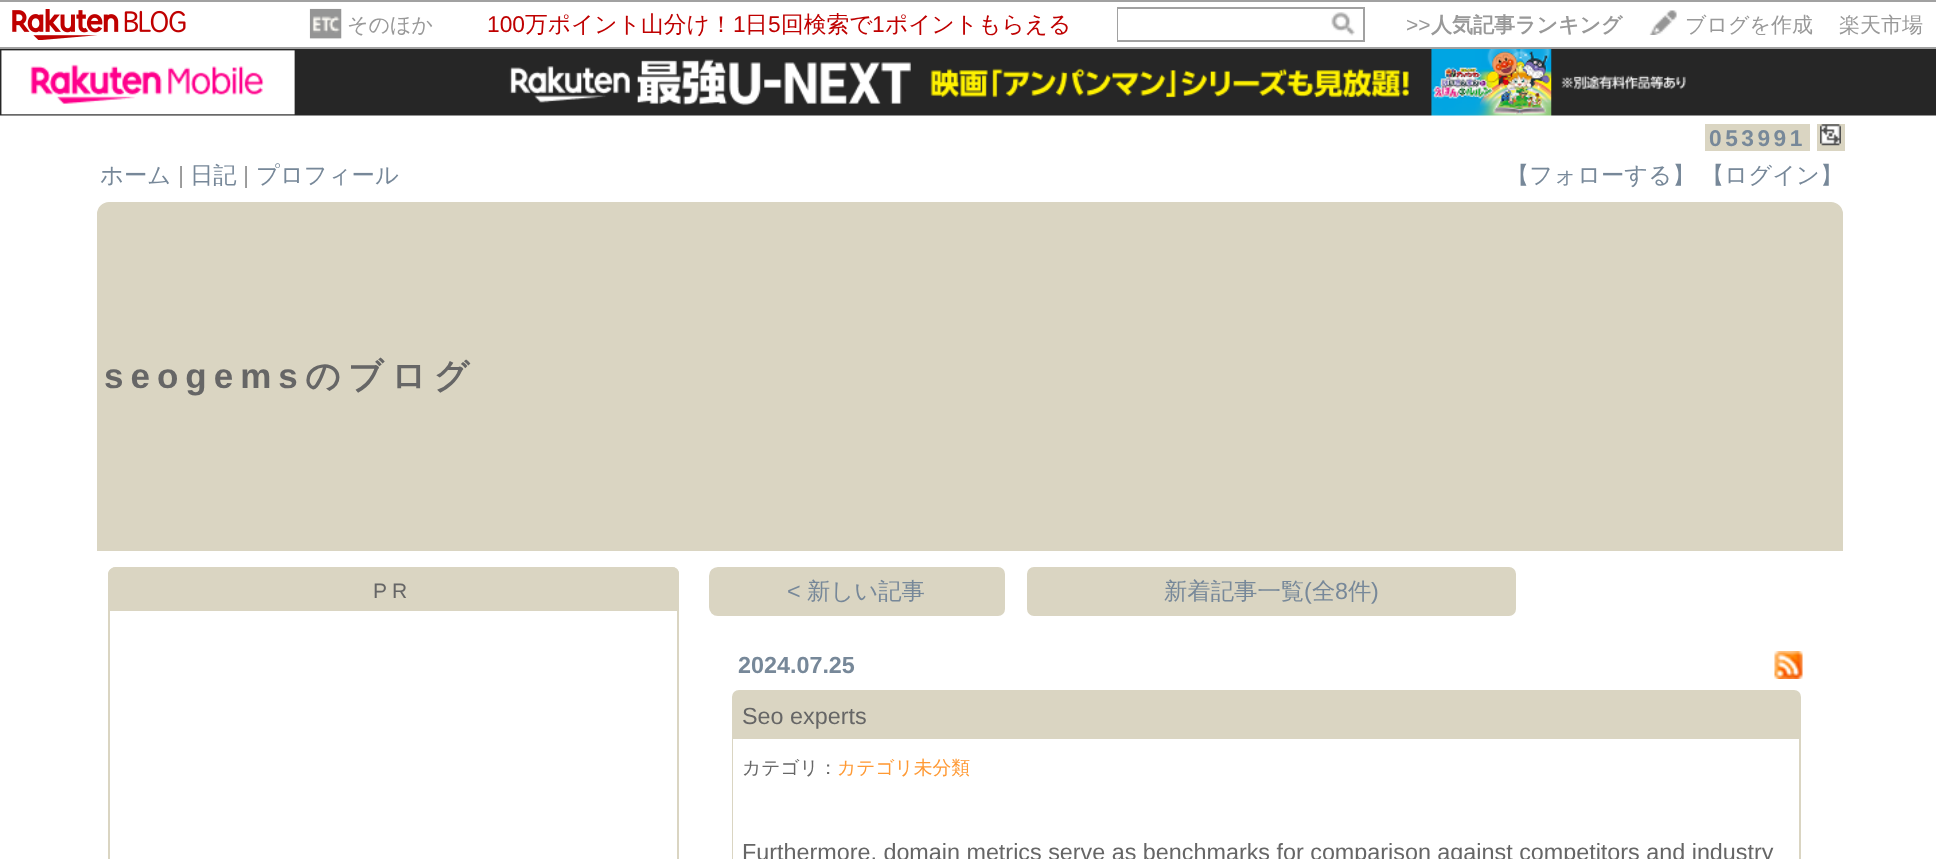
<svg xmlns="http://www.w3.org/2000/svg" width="1936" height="859">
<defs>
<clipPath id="clip1"><rect x="1405" y="7" width="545" height="28"/></clipPath>
</defs>
<rect width="100%" height="100%" fill="#fff"/>
<rect width="1936" height="2" fill="#a1a1a1"/>
<rect y="47" width="1936" height="2" fill="#a1a1a1"/>
<image x="12" y="9" width="174" height="31" href="media/1.png"/>
<image x="309" y="8" width="33" height="31" href="media/2.png"/>
<text x="347" y="32" style="font-family:WenQuanYi Zen Hei;font-size:21px;font-weight:500;fill:#999">そのほか</text>
<text x="487" y="32" style="font-family:Liberation Sans;font-size:22.75px;fill:#bf0000">100</text>
<text x="525" y="32" style="font-family:WenQuanYi Zen Hei;font-size:22.75px;font-weight:500;fill:#bf0000">万ポイント山分け！</text>
<text x="733" y="32" style="font-family:Liberation Sans;font-size:22.75px;fill:#bf0000">1</text>
<text x="745" y="32" style="font-family:WenQuanYi Zen Hei;font-size:22.75px;font-weight:500;fill:#bf0000">日</text>
<text x="768" y="32" style="font-family:Liberation Sans;font-size:22.75px;fill:#bf0000">5</text>
<text x="781" y="32" style="font-family:WenQuanYi Zen Hei;font-size:22.75px;font-weight:500;fill:#bf0000">回検索で</text>
<text x="872" y="32" style="font-family:Liberation Sans;font-size:22.75px;fill:#bf0000">1</text>
<text x="885" y="32" style="font-family:WenQuanYi Zen Hei;font-size:22.75px;font-weight:500;fill:#bf0000">ポイントもらえる</text>
<rect x="1118" y="8" width="246" height="33" fill="none" stroke="#a1a1a1" stroke-width="2"/>
<rect x="1118" y="9" width="1" height="31" fill="#fff"/>
<image x="1331" y="12" width="24" height="24" href="media/3.png"/>
<text x="1406" y="32" style="font-family:Liberation Sans;font-size:21px;fill:#999">&gt;&gt;</text>
<text x="1431" y="32" style="font-family:WenQuanYi Zen Hei;font-size:21px;font-weight:bold;fill:#999">人気記事ランキング</text>
<image x="1649" y="10" width="28" height="25" href="media/4.png"/>
<g clip-path="url(#clip1)">
<text x="1685" y="32" style="font-family:WenQuanYi Zen Hei;font-size:21px;font-weight:500;fill:#999">ブログを作成</text>
</g>
<text x="1839" y="32" style="font-family:WenQuanYi Zen Hei;font-size:21px;font-weight:500;fill:#999">楽天市場</text>
<image x="0" y="49" width="1936" height="67" href="media/5.png"/>
<rect x="1817" y="124" width="28" height="27" fill="#dad5c2"/>
<rect x="1705" y="124" width="105" height="27" fill="#dad5c2"/>
<text x="1709" y="146" style="font-family:Liberation Sans;font-size:22.75px;font-weight:bold;letter-spacing:3.5px;fill:#789">053991</text>
<image x="1820" y="124" width="21" height="22" href="media/6.png"/>
<text x="100" y="183" style="font-family:WenQuanYi Zen Hei;font-size:23.35px;font-weight:500;fill:#789">ホーム</text>
<text x="178" y="183" style="font-family:Liberation Sans;font-size:23.35px;fill:#999">|</text>
<text x="190" y="183" style="font-family:WenQuanYi Zen Hei;font-size:23.35px;font-weight:500;fill:#789">日記</text>
<text x="243" y="183" style="font-family:Liberation Sans;font-size:23.35px;fill:#999">|</text>
<text x="256" y="183" style="font-family:WenQuanYi Zen Hei;font-size:23.35px;font-weight:500;fill:#789">プロフィール</text>
<text x="1506" y="183" style="font-family:WenQuanYi Zen Hei;font-size:23.35px;font-weight:500;fill:#789">【フォローする】</text>
<text x="1701" y="183" style="font-family:WenQuanYi Zen Hei;font-size:23.35px;font-weight:500;fill:#789">【ログイン】</text>
<path d="M109 201h1722c7 0 13 6 13 13v338h-1748v-338c0-7 6-13 13-13z" fill="#dad5c2" stroke="#fff" stroke-width="2"/>
<text x="104" y="388" style="font-family:Liberation Sans;font-size:35px;font-weight:bold;letter-spacing:7px;fill:#666">seogems</text>
<text x="305" y="388" style="font-family:WenQuanYi Zen Hei;font-size:35px;font-weight:bold;letter-spacing:7px;fill:#666">のブログ</text>
<path d="M116 567h556c4 0 7 3 7 7v37h-570v-37c0-4 3-7 7-7z" fill="#dad5c2"/>
<path d="M116 567h556c4 0 7 3 7 7v37h-571v-37c0-4 4-7 8-7zm0 2h556c3 0 5 2 5 5v37h-567v-37c0-3 3-5 6-5z" fill="#dad5c2" fill-rule="evenodd"/>
<text x="373" y="598" style="font-family:Liberation Sans;font-size:21px;letter-spacing:5px;fill:#666">PR</text>
<path d="M108 611h571v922c0 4-3 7-7 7h-556c-4 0-8-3-8-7zm2 0h567v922c0 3-2 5-5 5h-556c-3 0-6-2-6-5z" fill="#dad5c2" fill-rule="evenodd"/>
<path d="M718 568h280c3.5 0 6 2.5 6 6v35c0 3.5-2.5 6-6 6h-280c-4.5 0-8-3.5-8-8v-31c0-4.5 3.5-8 8-8z" fill="#dad5c2" stroke="#dad5c2" stroke-width="2"/>
<text x="787" y="599" style="font-family:Liberation Sans;font-size:23.35px;fill:#789">&lt;</text>
<text x="807" y="599" style="font-family:WenQuanYi Zen Hei;font-size:23.35px;font-weight:500;fill:#789">新しい記事</text>
<rect x="1028" y="568" width="487" height="47" rx="6" fill="#dad5c2" stroke="#dad5c2" stroke-width="2"/>
<text x="1164" y="599" style="font-family:WenQuanYi Zen Hei;font-size:23.35px;font-weight:500;fill:#789">新着記事一覧</text>
<text x="1304" y="599" style="font-family:Liberation Sans;font-size:23.35px;fill:#789">(</text>
<text x="1312" y="599" style="font-family:WenQuanYi Zen Hei;font-size:23.35px;font-weight:500;fill:#789">全</text>
<text x="1335" y="599" style="font-family:Liberation Sans;font-size:23.35px;fill:#789">8</text>
<text x="1348" y="599" style="font-family:WenQuanYi Zen Hei;font-size:23.35px;font-weight:500;fill:#789">件</text>
<text x="1371" y="599" style="font-family:Liberation Sans;font-size:23.35px;fill:#789">)</text>
<text x="738" y="673" style="font-family:Liberation Sans;font-size:23.35px;font-weight:bold;fill:#789">2024.07.25</text>
<image x="1774" y="651" width="29" height="28" href="media/7.png"/>
<path d="M739 691h1055c3.5 0 6 2.5 6 6v41h-1067v-41c0-3.5 2.5-6 6-6z" fill="#dad5c2" stroke="#dad5c2" stroke-width="2"/>
<text x="742" y="724" style="font-family:Liberation Sans;font-size:23.35px;fill:#666">Seo experts</text>
<path d="M732 738h1069v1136c0 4-3 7-7 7h-1056c-3 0-6-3-6-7zm1 0h1066v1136c0 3-2 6-5 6h-1056c-2 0-5-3-5-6z" fill="#dad5c2" fill-rule="evenodd"/>
<text x="742" y="774" style="font-family:WenQuanYi Zen Hei;font-size:18.75px;font-weight:500;fill:#666">カテゴリ：</text>
<text x="837" y="774" style="font-family:WenQuanYi Zen Hei;font-size:18.75px;font-weight:500;fill:#f93">カテゴリ未分類</text>
<text x="742" y="860" style="font-family:Liberation Sans;font-size:23.35px;fill:#666">Furthermore, domain metrics serve as benchmarks for comparison against competitors and industry</text>
</svg>
